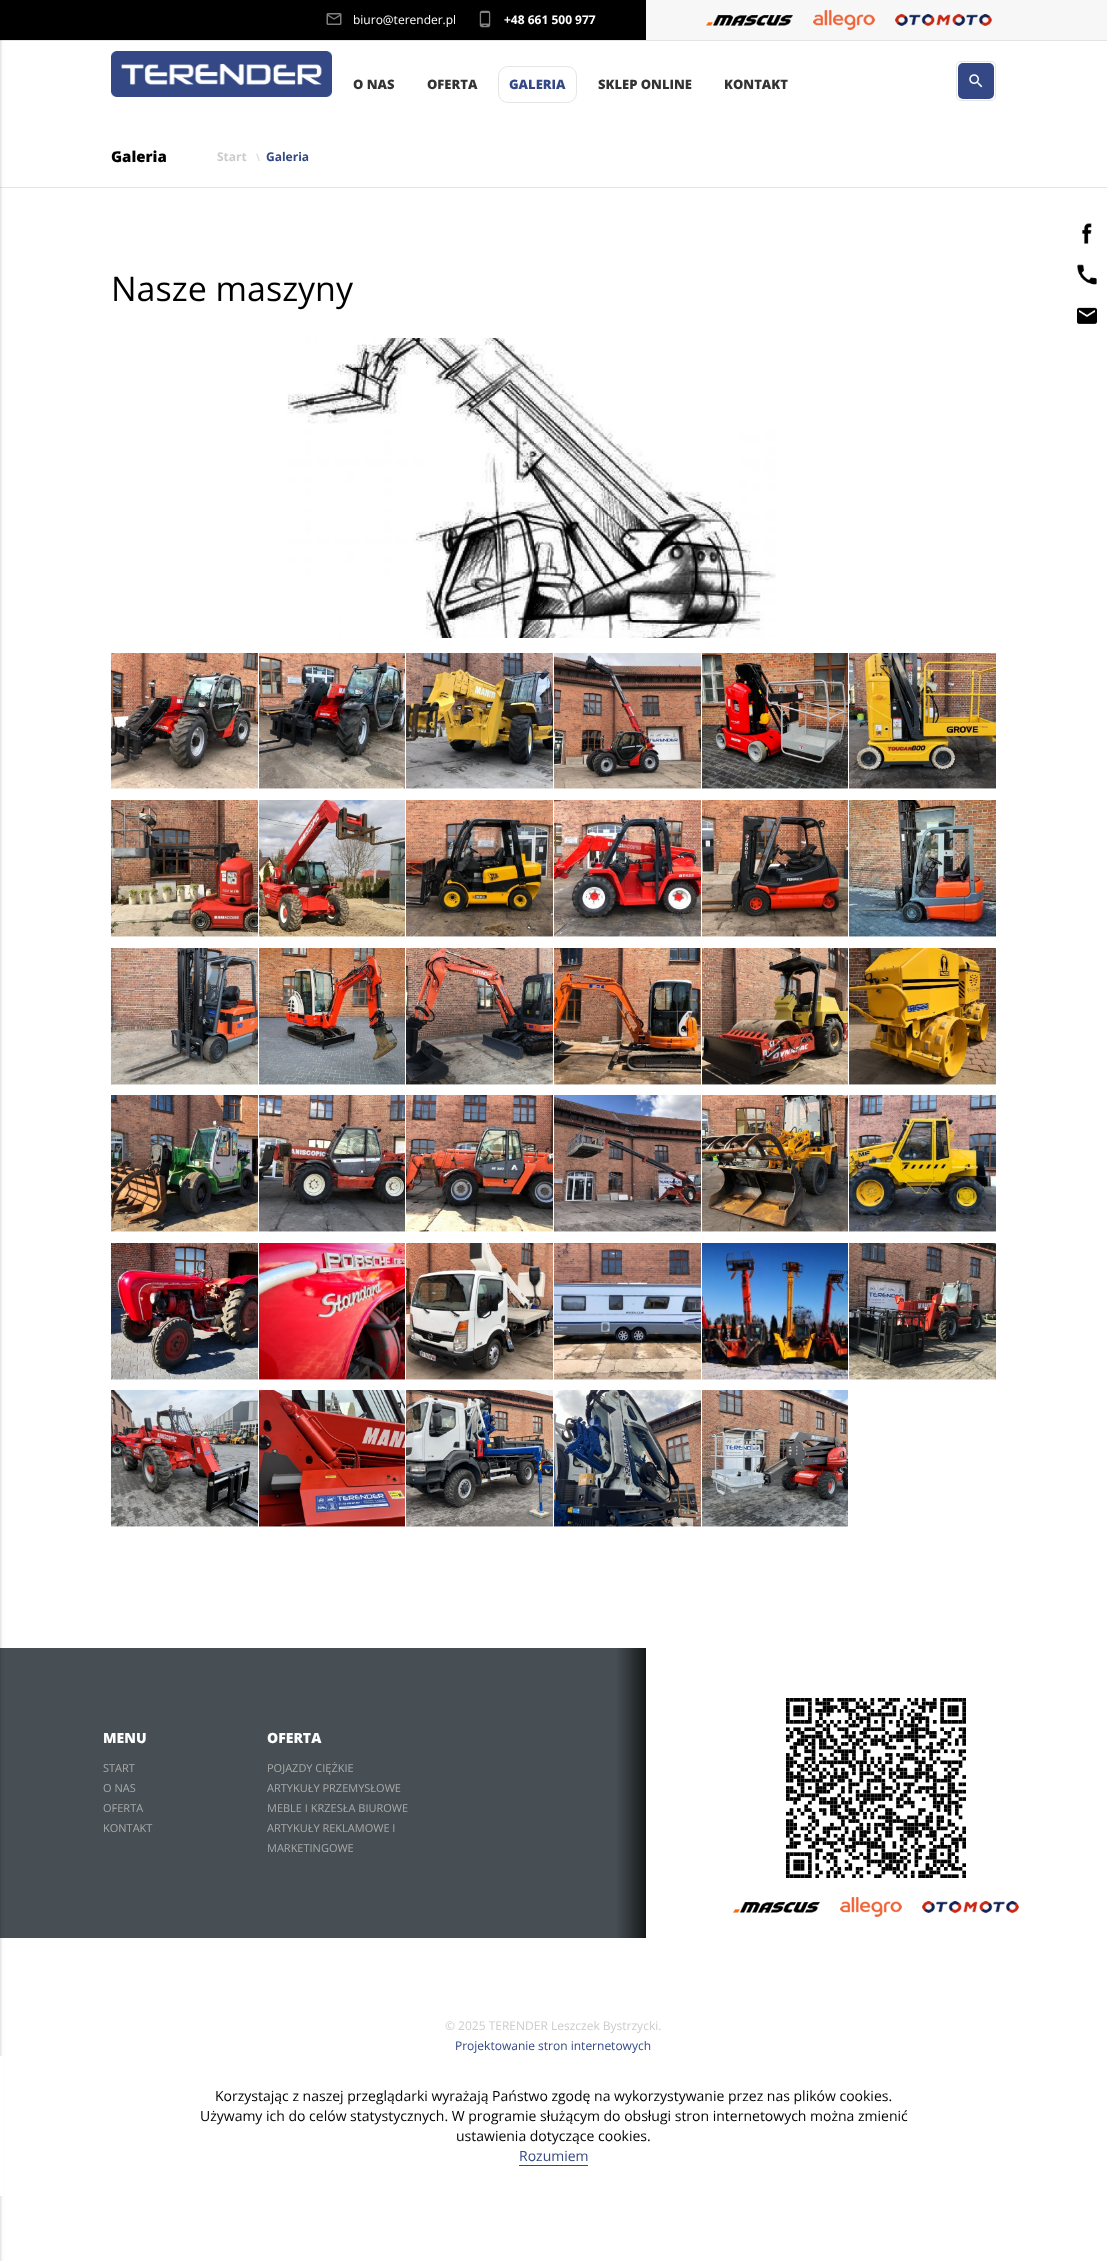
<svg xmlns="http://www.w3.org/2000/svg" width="1107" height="2261">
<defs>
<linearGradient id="g1" gradientUnits="userSpaceOnUse" x1="616" y1="1793" x2="646" y2="1793"><stop offset="0" stop-color="#474f54"/><stop offset="1" stop-color="#151819"/></linearGradient>
</defs>
<rect width="100%" height="100%" fill="#fff"/>
<rect y="40" width="1107" height="1" fill="#e5e5e5"/>
<rect width="646" height="40" fill="#000"/>
<rect y="187" width="1107" height="1" fill="#e5e5e5"/>
<rect y="1648" width="616" height="290" fill="#474f54"/>
<rect x="-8" y="1" width="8" height="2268" fill="#0000001f" filter="blur(2.5px)"/>
<rect x="-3" y="2" width="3" height="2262" fill="#00000024" filter="blur(1px)"/>
<rect x="646" width="461" height="40" fill="#f7f7f7"/>
<image x="326" y="13" width="16" height="12" href="media/1.png"/>
<text x="353" y="24" style="font-family:Open Sans;font-size:12px;fill:#fff">biuro@terender.pl</text>
<image x="479" y="10" width="12" height="18" href="media/2.png"/>
<text x="504" y="24" style="font-family:Open Sans;font-size:12px;font-weight:bold;fill:#fff">+48 661 500 977</text>
<image x="706" y="15" width="87" height="11" href="media/3.png"/>
<image x="813" y="10" width="62" height="20" href="media/4.png"/>
<image x="895" y="14" width="97" height="12" href="media/5.png"/>
<image x="111" y="51" width="221" height="46" href="media/6.png"/>
<text x="353" y="89" style="font-family:Open Sans;font-size:13px;font-weight:800;fill:#333">O NAS</text>
<text x="427" y="89" style="font-family:Open Sans;font-size:13px;font-weight:800;fill:#333">OFERTA</text>
<rect x="498.5" y="66.5" width="78" height="36" rx="9.5" fill="none" stroke="#e5e5e5"/>
<text x="509" y="89" style="font-family:Open Sans;font-size:13px;font-weight:800;fill:#334885">GALERIA</text>
<text x="598" y="89" style="font-family:Open Sans;font-size:13px;font-weight:800;fill:#333">SKLEP ONLINE</text>
<text x="724" y="89" style="font-family:Open Sans;font-size:13px;font-weight:800;fill:#333">KONTAKT</text>
<rect x="956.5" y="61.5" width="39" height="39" rx="4.5" fill="none" stroke="#e5e5e5"/>
<rect x="958" y="63" width="36" height="36" rx="5" fill="#334885"/>
<image x="969" y="74" width="14" height="14" href="media/7.png"/>
<text x="111" y="162" style="font-family:Open Sans;font-size:15px;font-weight:800;fill:#000">Galeria</text>
<text x="217" y="161" style="font-family:Open Sans;font-size:12px;font-weight:bold;fill:#ccc">Start</text>
<text x="256" y="161" style="font-family:Open Sans;font-size:10px;font-weight:bold;fill:#ddd">\</text>
<text x="266" y="161" style="font-family:Open Sans;font-size:12px;font-weight:bold;fill:#334885">Galeria</text>
<text x="111" y="301" style="font-family:Open Sans;font-size:34px;fill:#000">Nasze maszyny</text>
<image x="287" y="338" width="489" height="300" href="media/8.png"/>
<image x="111" y="653" width="147" height="136" href="media/9.png"/>
<image x="259" y="653" width="146" height="136" href="media/10.png"/>
<image x="406" y="653" width="147" height="136" href="media/11.png"/>
<image x="554" y="653" width="147" height="136" href="media/12.png"/>
<image x="702" y="653" width="146" height="136" href="media/13.png"/>
<image x="849" y="653" width="147" height="136" href="media/14.png"/>
<image x="111" y="800" width="147" height="137" href="media/15.png"/>
<image x="259" y="800" width="146" height="137" href="media/16.png"/>
<image x="406" y="800" width="147" height="137" href="media/17.png"/>
<image x="554" y="800" width="147" height="137" href="media/18.png"/>
<image x="702" y="800" width="146" height="137" href="media/19.png"/>
<image x="849" y="800" width="147" height="137" href="media/20.png"/>
<image x="111" y="948" width="147" height="137" href="media/21.png"/>
<image x="259" y="948" width="146" height="137" href="media/22.png"/>
<image x="406" y="948" width="147" height="137" href="media/23.png"/>
<image x="554" y="948" width="147" height="137" href="media/24.png"/>
<image x="702" y="948" width="146" height="137" href="media/25.png"/>
<image x="849" y="948" width="147" height="137" href="media/26.png"/>
<image x="111" y="1095" width="147" height="137" href="media/27.png"/>
<image x="259" y="1095" width="146" height="137" href="media/28.png"/>
<image x="406" y="1095" width="147" height="137" href="media/29.png"/>
<image x="554" y="1095" width="147" height="137" href="media/30.png"/>
<image x="702" y="1095" width="146" height="137" href="media/31.png"/>
<image x="849" y="1095" width="147" height="137" href="media/32.png"/>
<image x="111" y="1243" width="147" height="137" href="media/33.png"/>
<image x="259" y="1243" width="146" height="137" href="media/34.png"/>
<image x="406" y="1243" width="147" height="137" href="media/35.png"/>
<image x="554" y="1243" width="147" height="137" href="media/36.png"/>
<image x="702" y="1243" width="146" height="137" href="media/37.png"/>
<image x="849" y="1243" width="147" height="137" href="media/38.png"/>
<image x="111" y="1390" width="147" height="137" href="media/39.png"/>
<image x="259" y="1390" width="146" height="137" href="media/40.png"/>
<image x="406" y="1390" width="147" height="137" href="media/41.png"/>
<image x="554" y="1390" width="147" height="137" href="media/42.png"/>
<image x="702" y="1390" width="146" height="137" href="media/43.png"/>
<image x="1082" y="223" width="10" height="21" href="media/44.png"/>
<image x="1077" y="264" width="20" height="21" href="media/45.png"/>
<image x="1077" y="307" width="20" height="17" href="media/46.png"/>
<text x="103" y="1743" style="font-family:Open Sans;font-size:14px;font-weight:800;fill:#fff">MENU</text>
<text x="103" y="1772" style="font-family:Open Sans;font-size:11px;fill:#aaa">START</text>
<text x="103" y="1792" style="font-family:Open Sans;font-size:11px;fill:#aaa">O NAS</text>
<text x="103" y="1812" style="font-family:Open Sans;font-size:11px;fill:#aaa">OFERTA</text>
<text x="103" y="1832" style="font-family:Open Sans;font-size:11px;fill:#aaa">KONTAKT</text>
<text x="267" y="1743" style="font-family:Open Sans;font-size:14px;font-weight:800;fill:#fff">OFERTA</text>
<text x="267" y="1772" style="font-family:Open Sans;font-size:11px;fill:#aaa">POJAZDY CIĘŻKIE</text>
<text x="267" y="1792" style="font-family:Open Sans;font-size:11px;fill:#aaa">ARTYKUŁY PRZEMYSŁOWE</text>
<text x="267" y="1812" style="font-family:Open Sans;font-size:11px;fill:#aaa">MEBLE I KRZESŁA BIUROWE</text>
<text x="267" y="1832" style="font-family:Open Sans;font-size:11px;fill:#aaa">ARTYKUŁY REKLAMOWE I</text>
<text x="267" y="1852" style="font-family:Open Sans;font-size:11px;fill:#aaa">MARKETINGOWE</text>
<rect x="616" y="1648" width="30" height="290" fill="url(#g1)"/>
<image x="786" y="1698" width="180" height="180" href="media/47.png"/>
<image x="733" y="1902" width="87" height="11" href="media/48.png"/>
<image x="840" y="1897" width="62" height="20" href="media/49.png"/>
<image x="922" y="1901" width="97" height="12" href="media/50.png"/>
<text x="445" y="2030" style="font-family:Open Sans;font-size:12px;fill:#ccc">© 2025 TERENDER Leszczek Bystrzycki.</text>
<text x="455" y="2050" style="font-family:Open Sans;font-size:12px;fill:#334885">Projektowanie stron internetowych</text>
<rect y="2056" width="3" height="140" fill="#fff"/>
<text x="215" y="2101" style="font-family:Open Sans;font-size:14px;fill:#000">Korzystając z naszej przeglądarki wyrażają Państwo zgodę na wykorzystywanie przez nas plików cookies.</text>
<text x="200" y="2121" style="font-family:Open Sans;font-size:14px;fill:#000">Używamy ich do celów statystycznych. W programie służącym do obsługi stron internetowych można zmienić</text>
<text x="456" y="2141" style="font-family:Open Sans;font-size:14px;fill:#000">ustawienia dotyczące cookies.</text>
<text x="519" y="2161" style="font-family:Open Sans;font-size:14px;fill:#334885">Rozumiem</text>
<rect x="519" y="2165" width="69" height="1" fill="#334885"/>
</svg>
